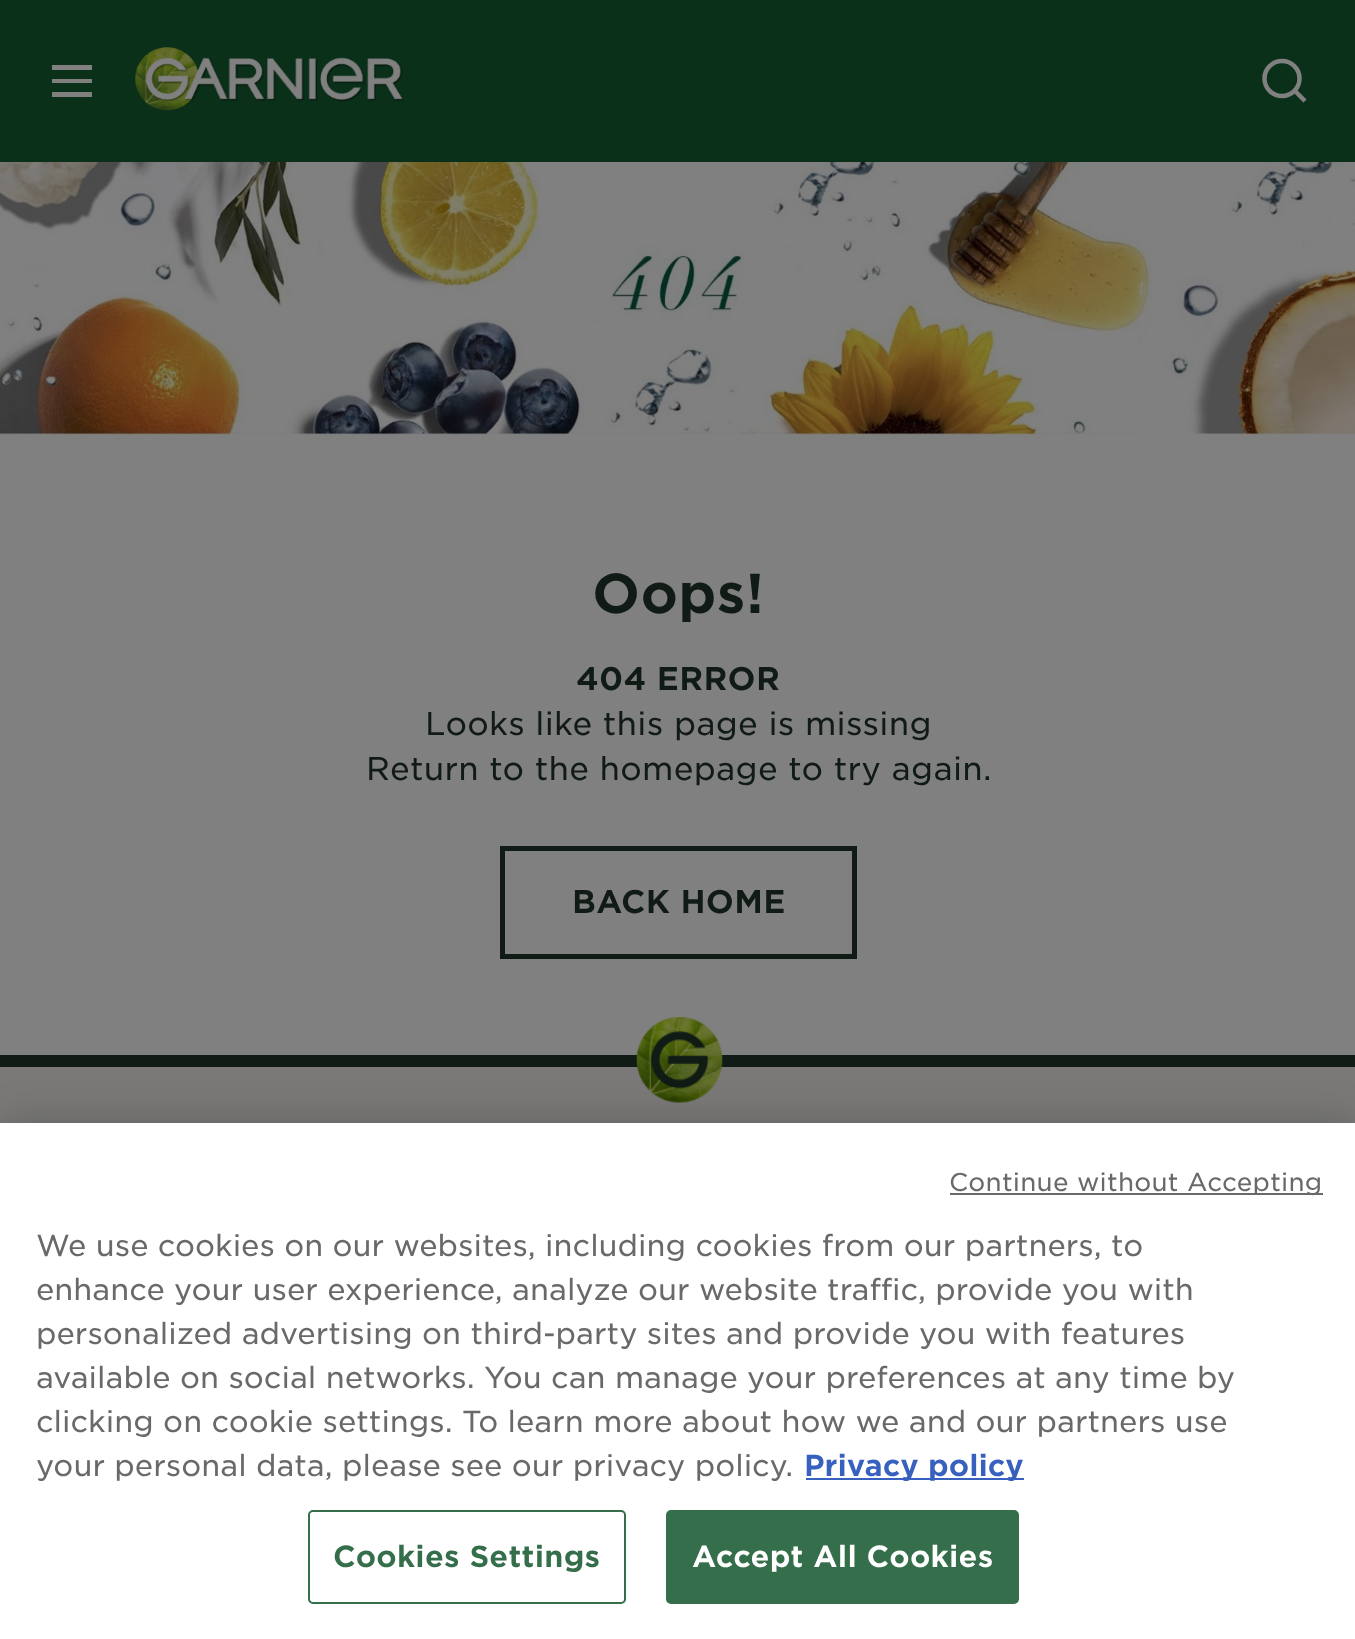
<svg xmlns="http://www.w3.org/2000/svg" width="1355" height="1639">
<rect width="100%" height="100%" fill="#808080"/>
<rect width="1355" height="162" fill="#0b3019"/>
<rect x="52" y="65" width="40" height="5" fill="#808080"/>
<rect x="52" y="79" width="40" height="4" fill="#808080"/>
<rect x="52" y="92" width="40" height="5" fill="#808080"/>
<image x="135" y="47" width="269" height="64" href="media/1.png"/>
<circle cx="1282" cy="78.5" r="17.5" fill="none" stroke="#808080" stroke-width="4.5"/>
<path d="M1295 91l10 10" fill="none" stroke="#808080" stroke-width="4.5" stroke-linejoin="round"/>
<image x="0" y="162" width="1355" height="273" href="media/2.png"/>
<text x="592" y="613" style="font-family:'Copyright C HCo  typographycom';font-size:54px;letter-spacing:0.25px;fill:#111b16">Oops!</text>
<text x="576" y="690" style="font-family:'Copyright C HCo  typographycom';font-size:31.5px;letter-spacing:0.25px;fill:#111b16">404 ERROR</text>
<text x="425" y="735" style="font-family:'Copyright C HCo  typographycom';font-size:31.5px;font-weight:300;letter-spacing:0.25px;fill:#111b16">Looks like this page is missing</text>
<text x="366" y="780" style="font-family:'Copyright C HCo  typographycom';font-size:31.5px;font-weight:300;letter-spacing:0.25px;fill:#111b16">Return to the homepage to try again.</text>
<rect x="502.5" y="848.5" width="352" height="108" fill="none" stroke="#111b16" stroke-width="5"/>
<text x="572" y="913" style="font-family:'Copyright C HCo  typographycom';font-size:31.5px;letter-spacing:0.25px;fill:#111b16">BACK HOME</text>
<rect y="1067" width="1355" height="56" fill="#7a7978"/>
<rect y="1055" width="1355" height="12" fill="#111b16"/>
<image x="636" y="1017" width="87" height="86" href="media/3.png"/>
<rect y="1123" width="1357" height="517" fill="#00000033" filter="blur(20px)"/>
<rect y="1123" width="1355" height="516" fill="#fff"/>
<rect x="950" y="1193" width="373" height="2" fill="#696969"/>
<text x="949" y="1191" style="font-family:'Copyright C HCo  typographycom';font-size:24.8px;font-weight:300;letter-spacing:0.25px;fill:#696969">Continue without Accepting</text>
<text x="36" y="1256" style="font-family:'Copyright C HCo  typographycom';font-size:29.25px;font-weight:300;fill:#696969">We use cookies on our websites, including cookies from our partners, to</text>
<text x="36" y="1300" style="font-family:'Copyright C HCo  typographycom';font-size:29.25px;font-weight:300;fill:#696969">enhance your user experience, analyze our website traffic, provide you with</text>
<text x="36" y="1344" style="font-family:'Copyright C HCo  typographycom';font-size:29.25px;font-weight:300;fill:#696969">personalized advertising on third-party sites and provide you with features</text>
<text x="36" y="1388" style="font-family:'Copyright C HCo  typographycom';font-size:29.25px;font-weight:300;fill:#696969">available on social networks. You can manage your preferences at any time by</text>
<text x="36" y="1432" style="font-family:'Copyright C HCo  typographycom';font-size:29.25px;font-weight:300;fill:#696969">clicking on cookie settings. To learn more about how we and our partners use</text>
<text x="36" y="1476" style="font-family:'Copyright C HCo  typographycom';font-size:29.25px;font-weight:300;fill:#696969">your personal data, please see our privacy policy.</text>
<rect x="806" y="1478" width="218" height="2" fill="#3860be"/>
<text x="804" y="1476" style="font-family:'Copyright C HCo  typographycom';font-size:29.25px;fill:#3860be">Privacy policy</text>
<rect x="309" y="1511" width="316" height="92" rx="4" fill="none" stroke="#346e4a" stroke-width="2"/>
<text x="333" y="1567" style="font-family:'Copyright C HCo  typographycom';font-size:29.25px;letter-spacing:0.25px;fill:#346e4a">Cookies Settings</text>
<rect x="667" y="1511" width="351" height="92" rx="4" fill="#346e4a" stroke="#346e4a" stroke-width="2"/>
<text x="692" y="1567" style="font-family:'Copyright C HCo  typographycom';font-size:29.25px;letter-spacing:0.25px;fill:#fff">Accept All Cookies</text>
</svg>
